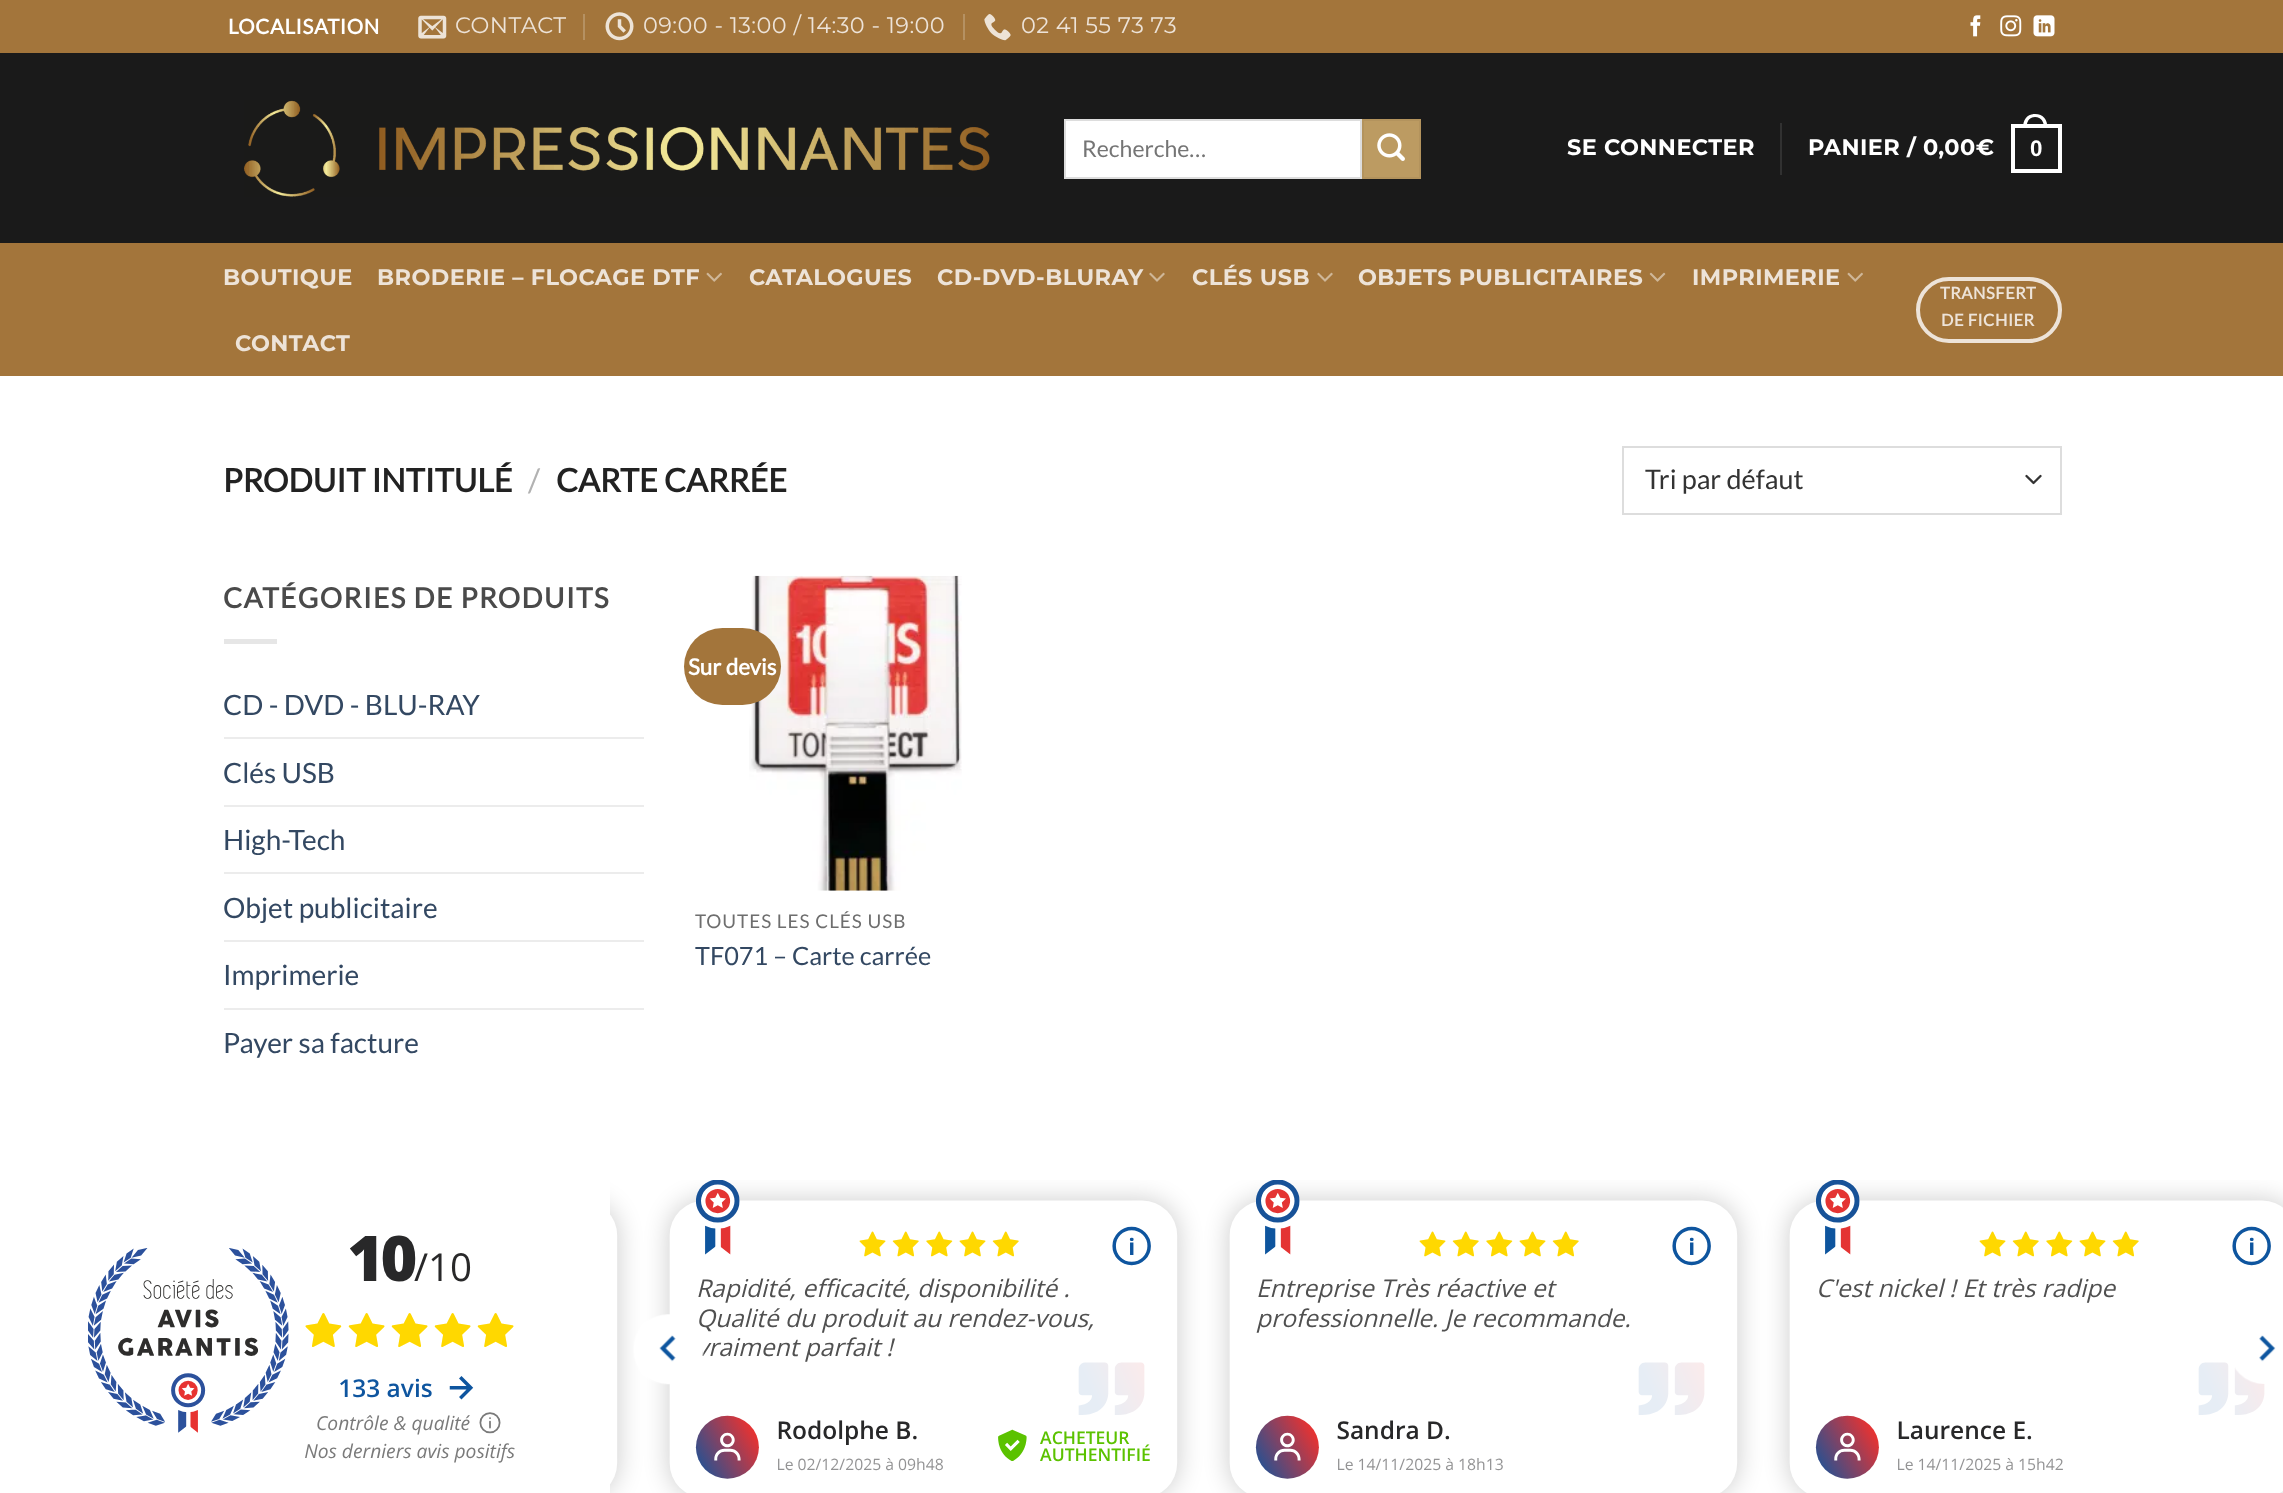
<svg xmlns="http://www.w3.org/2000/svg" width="2283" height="1493">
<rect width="100%" height="100%" fill="#fff"/>
<rect width="2283" height="53" fill="#a3753b"/>
<text x="228" y="34" style="font-family:Lato;font-size:20.5px;font-weight:bold;letter-spacing:0.6px;fill:#fff">LOCALISATION</text>
<image x="418" y="15" width="29" height="24" href="media/1.png"/>
<text x="455" y="33" style="font-family:Montserrat;font-size:22.4px;letter-spacing:0.45px;fill:#ede3d8">CONTACT</text>
<rect x="583" y="14" width="2" height="26" fill="#b59162"/>
<image x="605" y="12" width="29" height="29" href="media/2.png"/>
<text x="643" y="33" style="font-family:Montserrat;font-size:22.4px;letter-spacing:0.45px;fill:#ede3d8">09:00 - 13:00 / 14:30 - 19:00</text>
<rect x="963" y="14" width="2" height="26" fill="#b59162"/>
<image x="984" y="14" width="27" height="27" href="media/3.png"/>
<text x="1021" y="33" style="font-family:Montserrat;font-size:22.4px;letter-spacing:0.45px;fill:#ede3d8">02 41 55 73 73</text>
<image x="1970" y="15" width="11" height="22" href="media/4.png"/>
<image x="2000" y="15" width="22" height="22" href="media/5.png"/>
<image x="2033" y="15" width="22" height="22" href="media/6.png"/>
<rect y="53" width="2283" height="190" fill="#1a1a1a"/>
<image x="244" y="100" width="746" height="97" href="media/7.png"/>
<rect x="1065" y="120" width="296" height="58" fill="#fff" stroke="#ddd" stroke-width="2"/>
<text x="1082" y="157" style="font-family:Lato;font-size:23px;fill:#757575">Recherche…</text>
<rect x="1363" y="120" width="57" height="58" fill="#bc9b62" stroke="#b3935d" stroke-width="2"/>
<image x="1377" y="133" width="28" height="28" href="media/8.png"/>
<text x="1567" y="155" style="font-family:Montserrat;font-size:22.4px;font-weight:bold;letter-spacing:0.45px;fill:#fff">SE CONNECTER</text>
<rect x="1780" y="123" width="2" height="52" fill="#313131"/>
<text x="1808" y="155" style="font-family:Montserrat;font-size:22.4px;font-weight:bold;letter-spacing:0.45px;fill:#fff">PANIER / 0,00€</text>
<rect x="2013" y="126" width="47" height="45" fill="none" stroke="#fff" stroke-width="4"/>
<path d="M2035 114c8.5 0 12.5 6 12.5 14h-24.5c0-8 4-14 12-14zm0 3c6.5 0 9 5 9 11h-17.5c0-6 2.5-11 8.5-11z" fill="#fff" fill-rule="evenodd"/>
<text x="2030" y="156" style="font-family:Liberation Sans;font-size:22.4px;font-weight:bold;letter-spacing:0.45px;fill:#fff">0</text>
<rect y="243" width="2283" height="133" fill="#a3753b"/>
<text x="223" y="285" style="font-family:Montserrat;font-size:22.4px;font-weight:bold;letter-spacing:0.45px;fill:#ede3d8">BOUTIQUE</text>
<text x="377" y="285" style="font-family:Montserrat;font-size:22.4px;font-weight:bold;letter-spacing:0.45px;fill:#ede3d8">BRODERIE – FLOCAGE DTF</text>
<image x="706" y="272" width="16" height="10" href="media/9.png"/>
<text x="749" y="285" style="font-family:Montserrat;font-size:22.4px;font-weight:bold;letter-spacing:0.45px;fill:#ede3d8">CATALOGUES</text>
<text x="937" y="285" style="font-family:Montserrat;font-size:22.4px;font-weight:bold;letter-spacing:0.45px;fill:#ede3d8">CD-DVD-BLURAY</text>
<image x="1149" y="272" width="16" height="10" href="media/10.png"/>
<text x="1192" y="285" style="font-family:Montserrat;font-size:22.4px;font-weight:bold;letter-spacing:0.45px;fill:#ede3d8">CLÉS USB</text>
<image x="1317" y="272" width="16" height="10" href="media/10.png"/>
<text x="1358" y="285" style="font-family:Montserrat;font-size:22.4px;font-weight:bold;letter-spacing:0.45px;fill:#ede3d8">OBJETS PUBLICITAIRES</text>
<image x="1649" y="272" width="17" height="10" href="media/11.png"/>
<text x="1692" y="285" style="font-family:Montserrat;font-size:22.4px;font-weight:bold;letter-spacing:0.45px;fill:#ede3d8">IMPRIMERIE</text>
<image x="1847" y="272" width="16" height="10" href="media/9.png"/>
<text x="235" y="351" style="font-family:Montserrat;font-size:22.4px;font-weight:bold;letter-spacing:0.45px;fill:#ede3d8">CONTACT</text>
<rect x="1918" y="279" width="142" height="62" rx="31" fill="none" stroke="#ede3d8" stroke-width="4"/>
<text x="1940" y="299" style="font-family:Lato;font-size:16.5px;font-weight:bold;letter-spacing:0.5px;fill:#ede3d8">TRANSFERT</text>
<text x="1941" y="326" style="font-family:Lato;font-size:16.5px;font-weight:bold;letter-spacing:0.5px;fill:#ede3d8">DE FICHIER</text>
<text x="223" y="492" style="font-family:Lato;font-size:32.25px;font-weight:bold;fill:#222">PRODUIT INTITULÉ</text>
<text x="528" y="492" style="font-family:Lato;font-size:32.25px;fill:#b2b2b2">/</text>
<text x="556" y="492" style="font-family:Lato;font-size:32.25px;font-weight:bold;fill:#222">CARTE CARRÉE</text>
<path d="M2026.5 476l7 7l7-7" fill="none" stroke="#333" stroke-width="2.3" stroke-linecap="round" stroke-linejoin="round"/>
<rect x="1623" y="447" width="438" height="67" fill="none" stroke="#ddd" stroke-width="2"/>
<text x="1645" y="489" style="font-family:Lato;font-size:27px;fill:#333">Tri par défaut</text>
<text x="223" y="608" style="font-family:Lato;font-size:28px;font-weight:bold;letter-spacing:1.4px;fill:#4a4a4a">CATÉGORIES DE PRODUITS</text>
<rect x="224" y="639" width="53" height="5" fill="#e6e6e6"/>
<text x="223" y="715" style="font-family:Lato;font-size:28px;fill:#334862">CD - DVD - BLU-RAY</text>
<rect x="224" y="737" width="420" height="2" fill="#ececec"/>
<text x="223" y="783" style="font-family:Lato;font-size:28px;fill:#334862">Clés USB</text>
<rect x="224" y="805" width="420" height="2" fill="#ececec"/>
<text x="223" y="850" style="font-family:Lato;font-size:28px;fill:#334862">High-Tech</text>
<rect x="224" y="872" width="420" height="2" fill="#ececec"/>
<text x="223" y="918" style="font-family:Lato;font-size:28px;fill:#334862">Objet publicitaire</text>
<rect x="224" y="940" width="420" height="2" fill="#ececec"/>
<text x="223" y="985" style="font-family:Lato;font-size:28px;fill:#334862">Imprimerie</text>
<rect x="224" y="1008" width="420" height="2" fill="#ececec"/>
<text x="223" y="1053" style="font-family:Lato;font-size:28px;fill:#334862">Payer sa facture</text>
<image x="749" y="575" width="213" height="316" href="media/12.png"/>
<rect x="684" y="628" width="97" height="77" rx="38.5" fill="#a3753b"/>
<text x="688" y="675" style="font-family:Lato;font-size:22.4px;font-weight:bold;fill:#fff">Sur devis</text>
<text x="695" y="928" style="font-family:Lato;font-size:18.9px;letter-spacing:1px;fill:#6e6e6e">TOUTES LES CLÉS USB</text>
<text x="695" y="965" style="font-family:Lato;font-size:25.25px;fill:#334862">TF071 – Carte carrée</text>
<image x="88" y="1180" width="2195" height="313" href="media/13.png"/>
</svg>
